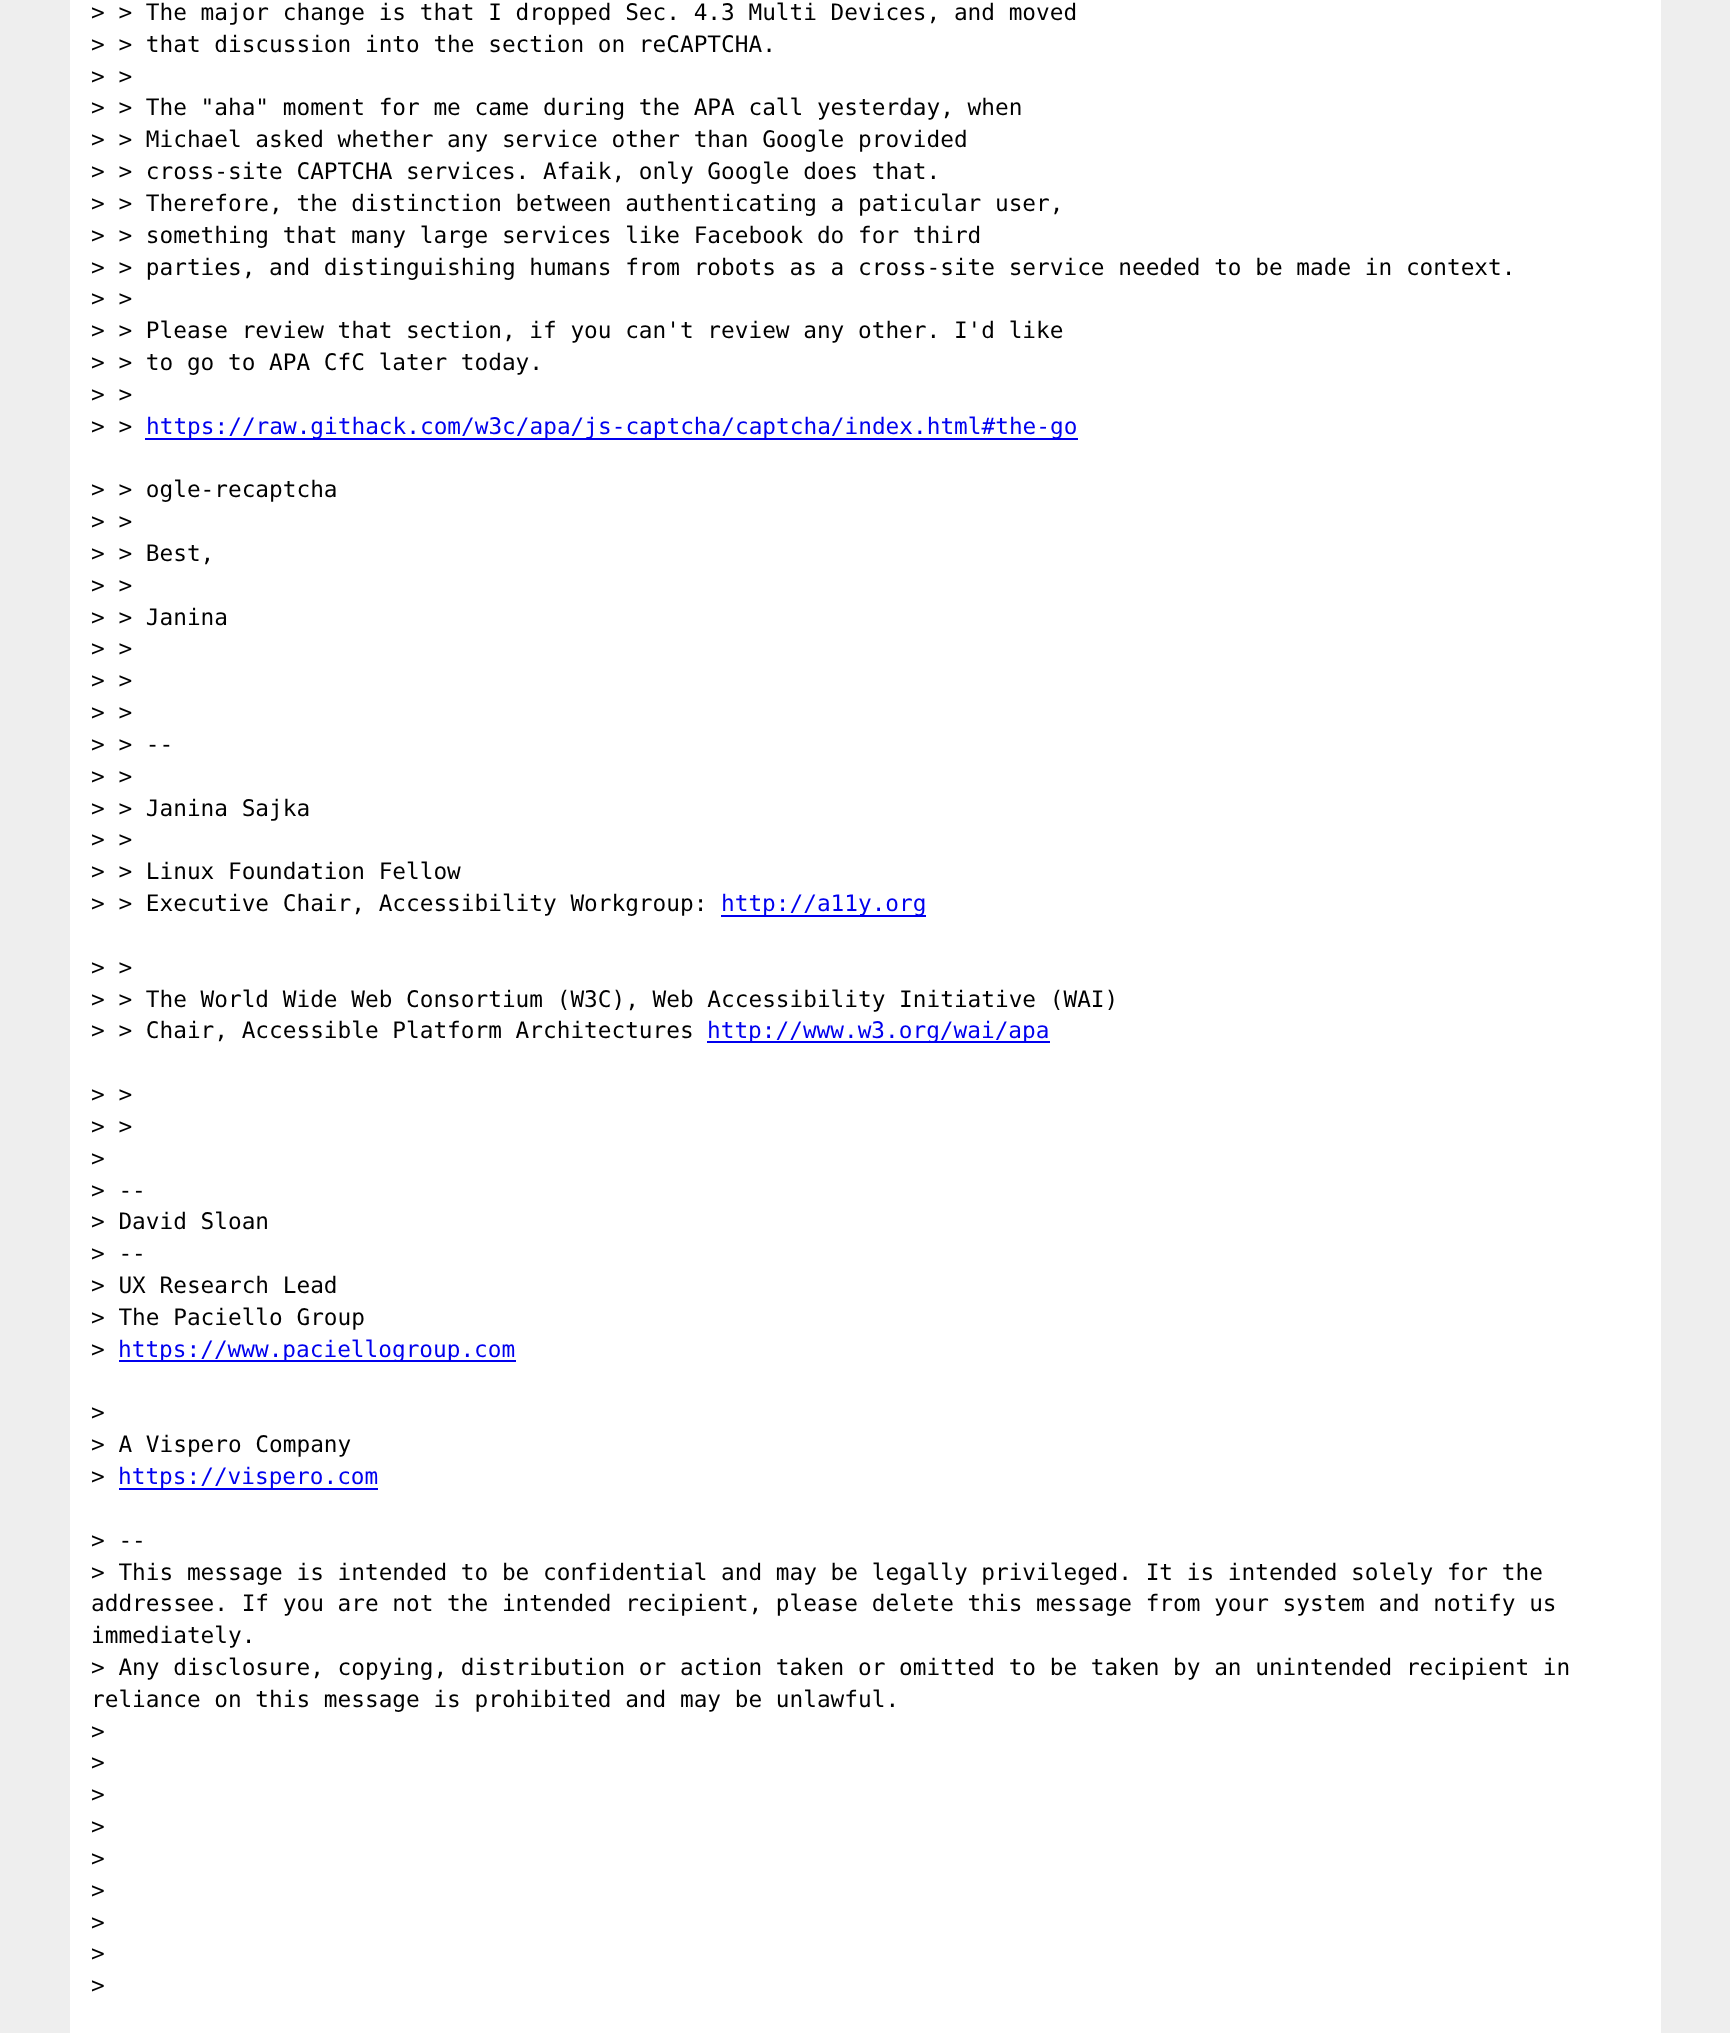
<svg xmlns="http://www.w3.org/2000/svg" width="1730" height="2033">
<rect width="100%" height="100%" fill="#eee"/>
<rect x="70" width="1591" height="2033" fill="#fff"/>
<text x="91" y="20" style="font-family:DejaVu Sans Mono;font-size:22.75px;fill:#000">&gt; &gt; The major change is that I dropped Sec. 4.3 Multi Devices, and moved</text>
<text x="91" y="52" style="font-family:DejaVu Sans Mono;font-size:22.75px;fill:#000">&gt; &gt; that discussion into the section on reCAPTCHA.</text>
<text x="91" y="84" style="font-family:DejaVu Sans Mono;font-size:22.75px;fill:#000">&gt; &gt;</text>
<text x="91" y="115" style="font-family:DejaVu Sans Mono;font-size:22.75px;fill:#000">&gt; &gt; The "aha" moment for me came during the APA call yesterday, when</text>
<text x="91" y="147" style="font-family:DejaVu Sans Mono;font-size:22.75px;fill:#000">&gt; &gt; Michael asked whether any service other than Google provided</text>
<text x="91" y="179" style="font-family:DejaVu Sans Mono;font-size:22.75px;fill:#000">&gt; &gt; cross-site CAPTCHA services. Afaik, only Google does that.</text>
<text x="91" y="211" style="font-family:DejaVu Sans Mono;font-size:22.75px;fill:#000">&gt; &gt; Therefore, the distinction between authenticating a paticular user,</text>
<text x="91" y="243" style="font-family:DejaVu Sans Mono;font-size:22.75px;fill:#000">&gt; &gt; something that many large services like Facebook do for third</text>
<text x="91" y="275" style="font-family:DejaVu Sans Mono;font-size:22.75px;fill:#000">&gt; &gt; parties, and distinguishing humans from robots as a cross-site service needed to be made in context.</text>
<text x="91" y="306" style="font-family:DejaVu Sans Mono;font-size:22.75px;fill:#000">&gt; &gt;</text>
<text x="91" y="338" style="font-family:DejaVu Sans Mono;font-size:22.75px;fill:#000">&gt; &gt; Please review that section, if you can't review any other. I'd like</text>
<text x="91" y="370" style="font-family:DejaVu Sans Mono;font-size:22.75px;fill:#000">&gt; &gt; to go to APA CfC later today.</text>
<text x="91" y="402" style="font-family:DejaVu Sans Mono;font-size:22.75px;fill:#000">&gt; &gt;</text>
<text x="91" y="434" style="font-family:DejaVu Sans Mono;font-size:22.75px;fill:#000">&gt; &gt;</text>
<rect x="145" y="438" width="933" height="2" fill="#00e"/>
<text x="146" y="434" style="font-family:DejaVu Sans Mono;font-size:22.75px;fill:#00e">https://raw.githack.com/w3c/apa/js-captcha/captcha/index.html#the-go</text>
<text x="91" y="497" style="font-family:DejaVu Sans Mono;font-size:22.75px;fill:#000">&gt; &gt; ogle-recaptcha</text>
<text x="91" y="529" style="font-family:DejaVu Sans Mono;font-size:22.75px;fill:#000">&gt; &gt;</text>
<text x="91" y="561" style="font-family:DejaVu Sans Mono;font-size:22.75px;fill:#000">&gt; &gt; Best,</text>
<text x="91" y="593" style="font-family:DejaVu Sans Mono;font-size:22.75px;fill:#000">&gt; &gt;</text>
<text x="91" y="625" style="font-family:DejaVu Sans Mono;font-size:22.75px;fill:#000">&gt; &gt; Janina</text>
<text x="91" y="656" style="font-family:DejaVu Sans Mono;font-size:22.75px;fill:#000">&gt; &gt;</text>
<text x="91" y="688" style="font-family:DejaVu Sans Mono;font-size:22.75px;fill:#000">&gt; &gt;</text>
<text x="91" y="720" style="font-family:DejaVu Sans Mono;font-size:22.75px;fill:#000">&gt; &gt;</text>
<text x="91" y="752" style="font-family:DejaVu Sans Mono;font-size:22.75px;fill:#000">&gt; &gt; --</text>
<text x="91" y="784" style="font-family:DejaVu Sans Mono;font-size:22.75px;fill:#000">&gt; &gt;</text>
<text x="91" y="816" style="font-family:DejaVu Sans Mono;font-size:22.75px;fill:#000">&gt; &gt; Janina Sajka</text>
<text x="91" y="847" style="font-family:DejaVu Sans Mono;font-size:22.75px;fill:#000">&gt; &gt;</text>
<text x="91" y="879" style="font-family:DejaVu Sans Mono;font-size:22.75px;fill:#000">&gt; &gt; Linux Foundation Fellow</text>
<text x="91" y="911" style="font-family:DejaVu Sans Mono;font-size:22.75px;fill:#000">&gt; &gt; Executive Chair, Accessibility Workgroup:</text>
<rect x="721" y="915" width="205" height="2" fill="#00e"/>
<text x="721" y="911" style="font-family:DejaVu Sans Mono;font-size:22.75px;fill:#00e">http://a11y.org</text>
<text x="91" y="975" style="font-family:DejaVu Sans Mono;font-size:22.75px;fill:#000">&gt; &gt;</text>
<text x="91" y="1007" style="font-family:DejaVu Sans Mono;font-size:22.75px;fill:#000">&gt; &gt; The World Wide Web Consortium (W3C), Web Accessibility Initiative (WAI)</text>
<text x="91" y="1038" style="font-family:DejaVu Sans Mono;font-size:22.75px;fill:#000">&gt; &gt; Chair, Accessible Platform Architectures</text>
<rect x="707" y="1041" width="343" height="2" fill="#00e"/>
<text x="707" y="1038" style="font-family:DejaVu Sans Mono;font-size:22.75px;fill:#00e">http://www.w3.org/wai/apa</text>
<text x="91" y="1102" style="font-family:DejaVu Sans Mono;font-size:22.75px;fill:#000">&gt; &gt;</text>
<text x="91" y="1134" style="font-family:DejaVu Sans Mono;font-size:22.75px;fill:#000">&gt; &gt;</text>
<text x="91" y="1166" style="font-family:DejaVu Sans Mono;font-size:22.75px;fill:#000">&gt;</text>
<text x="91" y="1198" style="font-family:DejaVu Sans Mono;font-size:22.75px;fill:#000">&gt; --</text>
<text x="91" y="1229" style="font-family:DejaVu Sans Mono;font-size:22.75px;fill:#000">&gt; David Sloan</text>
<text x="91" y="1261" style="font-family:DejaVu Sans Mono;font-size:22.75px;fill:#000">&gt; --</text>
<text x="91" y="1293" style="font-family:DejaVu Sans Mono;font-size:22.75px;fill:#000">&gt; UX Research Lead</text>
<text x="91" y="1325" style="font-family:DejaVu Sans Mono;font-size:22.75px;fill:#000">&gt; The Paciello Group</text>
<text x="91" y="1357" style="font-family:DejaVu Sans Mono;font-size:22.75px;fill:#000">&gt;</text>
<rect x="119" y="1360" width="397" height="2" fill="#00e"/>
<text x="118" y="1357" style="font-family:DejaVu Sans Mono;font-size:22.75px;fill:#00e">https://www.paciellogroup.com</text>
<text x="91" y="1420" style="font-family:DejaVu Sans Mono;font-size:22.75px;fill:#000">&gt;</text>
<text x="91" y="1452" style="font-family:DejaVu Sans Mono;font-size:22.75px;fill:#000">&gt; A Vispero Company</text>
<text x="91" y="1484" style="font-family:DejaVu Sans Mono;font-size:22.75px;fill:#000">&gt;</text>
<rect x="119" y="1488" width="259" height="2" fill="#00e"/>
<text x="118" y="1484" style="font-family:DejaVu Sans Mono;font-size:22.75px;fill:#00e">https://vispero.com</text>
<text x="91" y="1548" style="font-family:DejaVu Sans Mono;font-size:22.75px;fill:#000">&gt; --</text>
<text x="91" y="1580" style="font-family:DejaVu Sans Mono;font-size:22.75px;fill:#000">&gt; This message is intended to be confidential and may be legally privileged. It is intended solely for the</text>
<text x="91" y="1611" style="font-family:DejaVu Sans Mono;font-size:22.75px;fill:#000">addressee. If you are not the intended recipient, please delete this message from your system and notify us</text>
<text x="91" y="1643" style="font-family:DejaVu Sans Mono;font-size:22.75px;fill:#000">immediately.</text>
<text x="91" y="1675" style="font-family:DejaVu Sans Mono;font-size:22.75px;fill:#000">&gt; Any disclosure, copying, distribution or action taken or omitted to be taken by an unintended recipient in</text>
<text x="91" y="1707" style="font-family:DejaVu Sans Mono;font-size:22.75px;fill:#000">reliance on this message is prohibited and may be unlawful.</text>
<text x="91" y="1739" style="font-family:DejaVu Sans Mono;font-size:22.75px;fill:#000">&gt;</text>
<text x="91" y="1770" style="font-family:DejaVu Sans Mono;font-size:22.75px;fill:#000">&gt;</text>
<text x="91" y="1802" style="font-family:DejaVu Sans Mono;font-size:22.75px;fill:#000">&gt;</text>
<text x="91" y="1834" style="font-family:DejaVu Sans Mono;font-size:22.75px;fill:#000">&gt;</text>
<text x="91" y="1866" style="font-family:DejaVu Sans Mono;font-size:22.75px;fill:#000">&gt;</text>
<text x="91" y="1898" style="font-family:DejaVu Sans Mono;font-size:22.75px;fill:#000">&gt;</text>
<text x="91" y="1930" style="font-family:DejaVu Sans Mono;font-size:22.75px;fill:#000">&gt;</text>
<text x="91" y="1961" style="font-family:DejaVu Sans Mono;font-size:22.75px;fill:#000">&gt;</text>
<text x="91" y="1993" style="font-family:DejaVu Sans Mono;font-size:22.75px;fill:#000">&gt;</text>
</svg>
